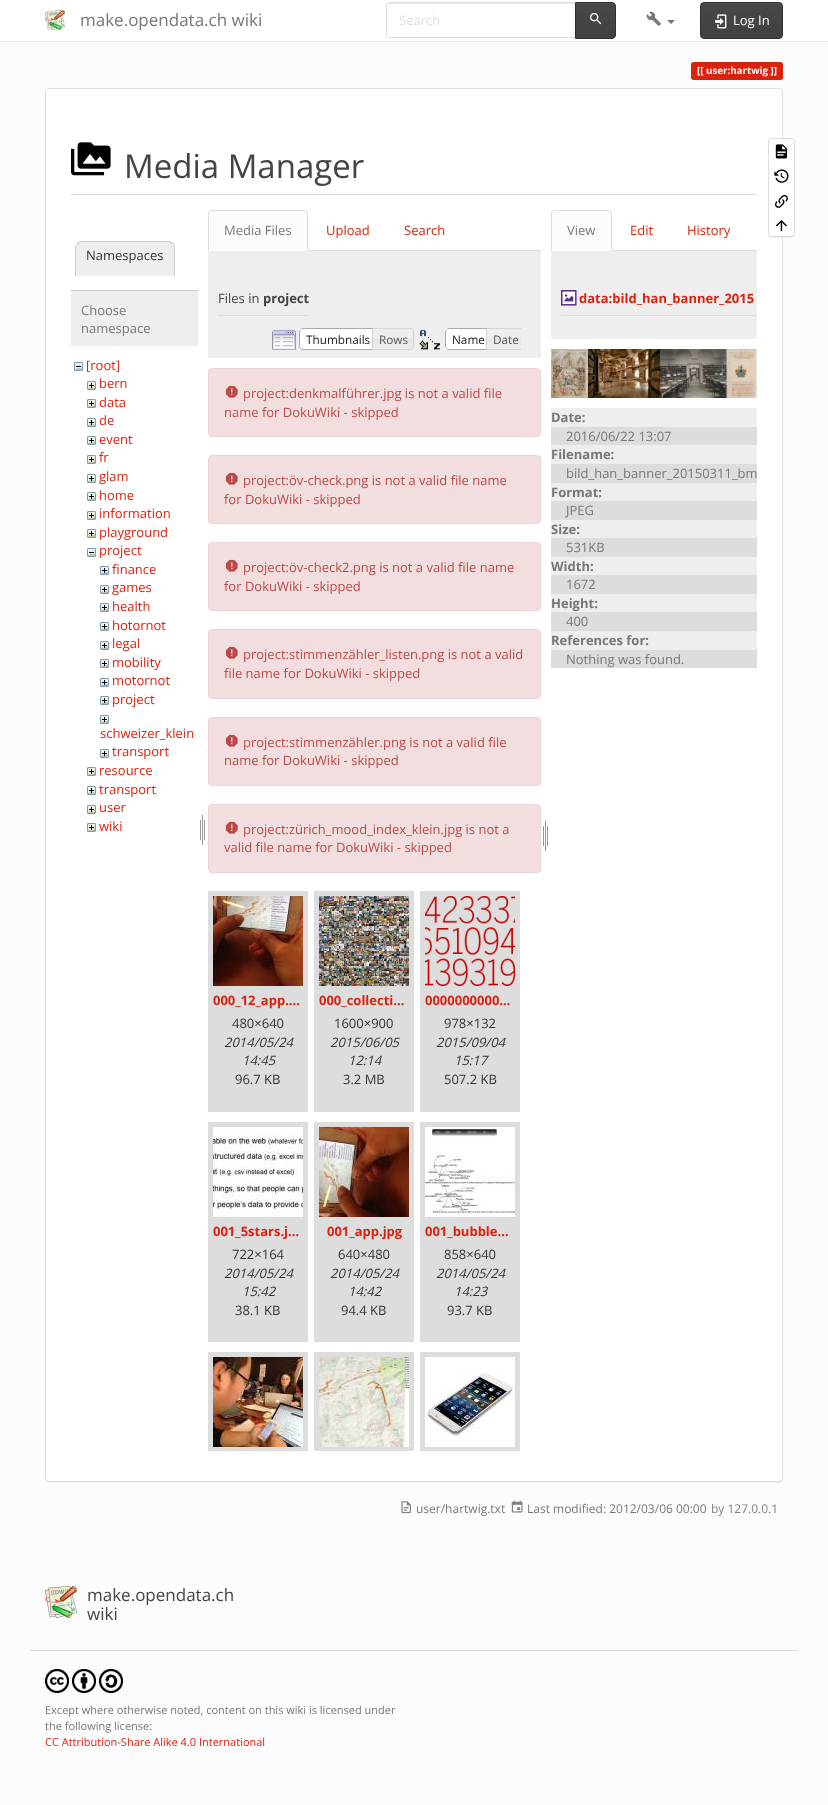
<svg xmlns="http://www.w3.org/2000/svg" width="828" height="1805">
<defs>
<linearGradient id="g1" gradientUnits="userSpaceOnUse" x1="596" y1="3" x2="596" y2="38"><stop offset="0" stop-color="#4f5151"/><stop offset="0.06" stop-color="#474949"/><stop offset="1" stop-color="#3f4141"/></linearGradient>
<clipPath id="clip1"><rect x="700" y="2" width="83" height="37" rx="4"/></clipPath>
<linearGradient id="g2" gradientUnits="userSpaceOnUse" x1="742" y1="3" x2="742" y2="38"><stop offset="0" stop-color="#4f5151"/><stop offset="0.06" stop-color="#474949"/><stop offset="1" stop-color="#3f4141"/></linearGradient>
<clipPath id="clip2"><rect x="264" y="328" width="257" height="22"/></clipPath>
</defs>
<rect width="100%" height="100%" fill="#fcfcfc"/>
<rect width="828" height="41" fill="#fff"/>
<rect y="41" width="828" height="1" fill="#eee"/>
<image x="45" y="10" width="20" height="20" href="media/1.png"/>
<text x="80" y="26" style="font-family:Open Sans;font-size:17px;fill:#777">make.opendata.ch wiki</text>
<path d="M390 4h185v-1h-185c-2 0-3 2-3 4c0-2 1-3 3-3z" fill="#ececec"/>
<path d="M390 2.5h185.5v35h-185.5c-2 0-3.5-1.5-3.5-3.5v-28c0-2 1.5-3.5 3.5-3.5z" fill="none" stroke="#ddd"/>
<text x="399" y="25" style="font-family:Open Sans;font-size:13px;fill:#ddd">Search</text>
<rect x="576" y="3" width="39" height="35" fill="url(#g1)"/>
<path d="M575.5 2.5h36.5c2 0 3.5 1.5 3.5 3.5v29c0 2-1.5 3.5-3.5 3.5h-36.5z" fill="none" stroke="#2e2f2f"/>
<image x="590" y="12" width="12" height="13" href="media/2.png"/>
<image x="646" y="11" width="15" height="15" href="media/3.png"/>
<path d="M667 20h8l-4 4z" fill="#777"/>
<g clip-path="url(#clip1)">
<rect x="701" y="3" width="81" height="35" fill="url(#g2)"/>
</g>
<rect x="700.5" y="2.5" width="82" height="36" rx="3.5" fill="none" stroke="#2e2f2f"/>
<image x="715" y="14" width="12" height="15" href="media/4.png"/>
<text x="733" y="25" style="font-family:Open Sans;font-size:13px;fill:#fff">Log In</text>
<path d="M693.5 62h12.5v18h-12.5c-1.5 0-2.5-1-2.5-2.5v-13c0-1.5 1-2.5 2.5-2.5z" fill="#d9230f"/>
<rect x="706" y="62" width="62" height="18" fill="#d9230f"/>
<path d="M768 62h12.5c1.5 0 2.5 1 2.5 2.5v13c0 1.5-1 2.5-2.5 2.5h-12.5z" fill="#d9230f"/>
<text x="697" y="74" style="font-family:Open Sans;font-size:9.75px;font-weight:bold;fill:#fff">[[ user:hartwig ]]</text>
<rect x="45" y="89" width="738" height="1394" rx="4" fill="#0000000d" filter="blur(0.5px)"/>
<rect x="45.5" y="88.5" width="737" height="1393" rx="3.5" fill="#fff" stroke="#ddd"/>
<rect x="71" y="194" width="686" height="1" fill="#ddd"/>
<image x="71" y="142" width="40" height="34" href="media/5.png"/>
<text x="124" y="178" style="font-family:Open Sans;font-size:33px;fill:#444">Media Manager</text>
<path d="M82 241h86c4 0 7 3 7 7v28h-100v-28c0-4 3-7 7-7z" fill="#eee"/>
<path d="M82 241c-2 0-4 1-5 2l1 1l3-2h88l3 2l1-1c-1-1-3-2-5-2z" fill="#ccc"/>
<path d="M175 276v-28c0-2-1-4-2-5l-.5 .5c1 1 1.5 2.5 1.5 4.5v27z" fill="#ccc"/>
<path d="M175 276l-1-1h-98l-1 1z" fill="#eee"/>
<path d="M75 276l1-1v-27c0-2 .5-3.5 1.5-4.5l-.5-.5c-1 1-2 3-2 5z" fill="#ccc"/>
<text x="86" y="260" style="font-family:Open Sans;font-size:13px;fill:#333">Namespaces</text>
<rect x="71" y="291" width="127" height="55" fill="#eee"/>
<rect x="71" y="290" width="127" height="1" fill="#ccc"/>
<text x="81" y="315" style="font-family:Open Sans;font-size:13px;fill:#777">Choose</text>
<text x="81" y="333" style="font-family:Open Sans;font-size:13px;fill:#777">namespace</text>
<image x="74" y="362" width="9" height="9" href="media/6.png"/>
<text x="86" y="370" style="font-family:Open Sans;font-size:13px;fill:#d9230f">[root]</text>
<image x="87" y="381" width="9" height="9" href="media/7.png"/>
<text x="99" y="388" style="font-family:Open Sans;font-size:13px;fill:#d9230f">bern</text>
<image x="87" y="399" width="9" height="9" href="media/7.png"/>
<text x="99" y="407" style="font-family:Open Sans;font-size:13px;fill:#d9230f">data</text>
<image x="87" y="418" width="9" height="9" href="media/7.png"/>
<text x="99" y="425" style="font-family:Open Sans;font-size:13px;fill:#d9230f">de</text>
<image x="87" y="436" width="9" height="9" href="media/7.png"/>
<text x="99" y="444" style="font-family:Open Sans;font-size:13px;fill:#d9230f">event</text>
<image x="87" y="455" width="9" height="9" href="media/7.png"/>
<text x="99" y="462" style="font-family:Open Sans;font-size:13px;fill:#d9230f">fr</text>
<image x="87" y="474" width="9" height="9" href="media/7.png"/>
<text x="99" y="481" style="font-family:Open Sans;font-size:13px;fill:#d9230f">glam</text>
<image x="87" y="492" width="9" height="9" href="media/7.png"/>
<text x="99" y="500" style="font-family:Open Sans;font-size:13px;fill:#d9230f">home</text>
<image x="87" y="511" width="9" height="9" href="media/7.png"/>
<text x="99" y="518" style="font-family:Open Sans;font-size:13px;fill:#d9230f">information</text>
<image x="87" y="529" width="9" height="9" href="media/7.png"/>
<text x="99" y="537" style="font-family:Open Sans;font-size:13px;fill:#d9230f">playground</text>
<image x="87" y="548" width="9" height="9" href="media/6.png"/>
<text x="99" y="555" style="font-family:Open Sans;font-size:13px;fill:#d9230f">project</text>
<image x="100" y="566" width="9" height="9" href="media/7.png"/>
<text x="112" y="574" style="font-family:Open Sans;font-size:13px;fill:#d9230f">finance</text>
<image x="100" y="585" width="9" height="9" href="media/7.png"/>
<text x="112" y="592" style="font-family:Open Sans;font-size:13px;fill:#d9230f">games</text>
<image x="100" y="603" width="9" height="9" href="media/7.png"/>
<text x="112" y="611" style="font-family:Open Sans;font-size:13px;fill:#d9230f">health</text>
<image x="100" y="622" width="9" height="9" href="media/7.png"/>
<text x="112" y="630" style="font-family:Open Sans;font-size:13px;fill:#d9230f">hotornot</text>
<image x="100" y="641" width="9" height="9" href="media/7.png"/>
<text x="112" y="648" style="font-family:Open Sans;font-size:13px;fill:#d9230f">legal</text>
<image x="100" y="659" width="9" height="9" href="media/7.png"/>
<text x="112" y="667" style="font-family:Open Sans;font-size:13px;fill:#d9230f">mobility</text>
<image x="100" y="678" width="9" height="9" href="media/7.png"/>
<text x="112" y="685" style="font-family:Open Sans;font-size:13px;fill:#d9230f">motornot</text>
<image x="100" y="696" width="9" height="9" href="media/7.png"/>
<text x="112" y="704" style="font-family:Open Sans;font-size:13px;fill:#d9230f">project</text>
<image x="100" y="715" width="9" height="9" href="media/7.png"/>
<text x="100" y="738" style="font-family:Open Sans;font-size:13px;fill:#d9230f">schweizer_klein</text>
<image x="100" y="749" width="9" height="9" href="media/7.png"/>
<text x="112" y="756" style="font-family:Open Sans;font-size:13px;fill:#d9230f">transport</text>
<image x="87" y="767" width="9" height="9" href="media/7.png"/>
<text x="99" y="775" style="font-family:Open Sans;font-size:13px;fill:#d9230f">resource</text>
<image x="87" y="786" width="9" height="9" href="media/7.png"/>
<text x="99" y="794" style="font-family:Open Sans;font-size:13px;fill:#d9230f">transport</text>
<image x="87" y="805" width="9" height="9" href="media/7.png"/>
<text x="99" y="812" style="font-family:Open Sans;font-size:13px;fill:#d9230f">user</text>
<image x="87" y="823" width="9" height="9" href="media/7.png"/>
<text x="99" y="831" style="font-family:Open Sans;font-size:13px;fill:#d9230f">wiki</text>
<image x="200" y="814" width="5" height="31" href="media/8.png"/>
<rect x="308" y="250" width="233" height="1" fill="#ddd"/>
<path d="M212 210h92c2 0 4 2 4 4v37h-100v-37c0-2 2-4 4-4z" fill="#fcfcfc"/>
<path d="M212 210l-3 1l1 1l2-1h92l2 1l1-1l-3-1z" fill="#ddd"/>
<path d="M308 251v-37c0-1-.5-2-1-3l-1 1c1 0 1 1 1 2v36z" fill="#ddd"/>
<path d="M208 251l1-1v-36c0-1 0-2 1-2l-1-1c-.5 1-1 2-1 3z" fill="#ddd"/>
<text x="224" y="235" style="font-family:Open Sans;font-size:13px;fill:#777">Media Files</text>
<text x="326" y="235" style="font-family:Open Sans;font-size:13px;fill:#d9230f">Upload</text>
<text x="404" y="235" style="font-family:Open Sans;font-size:13px;fill:#d9230f">Search</text>
<rect x="208" y="251" width="333" height="107" fill="#eee"/>
<rect x="218" y="315" width="91" height="1" fill="#ddd"/>
<text x="218" y="303" style="font-family:Open Sans;font-size:13px;fill:#444">Files in</text>
<text x="263" y="303" style="font-family:Open Sans;font-size:13px;font-weight:bold;fill:#444">project</text>
<image x="272" y="330" width="24" height="20" href="media/9.png"/>
<rect x="299" y="328" width="73" height="22" fill="#fff"/>
<path d="M303 328.5h73.5v21h-73.5c-2 0-3.5-1.5-3.5-3.5v-14c0-2 1.5-3.5 3.5-3.5z" fill="none" stroke="#aaa"/>
<text x="306" y="344" style="font-family:Open Sans;font-size:11.75px;fill:#212121">Thumbnails</text>
<image x="373" y="328" width="41" height="22" href="media/10.png"/>
<path d="M372.5 328.5h37.5c2 0 3.5 1.5 3.5 3.5v14c0 2-1.5 3.5-3.5 3.5h-37.5z" fill="none" stroke="#d3d3d3"/>
<text x="379" y="344" style="font-family:Open Sans;font-size:11.75px;fill:#555">Rows</text>
<image x="419" y="330" width="21" height="20" href="media/11.png"/>
<rect x="445" y="328" width="41" height="22" fill="#fff"/>
<path d="M449 328.5h41.5v21h-41.5c-2 0-3.5-1.5-3.5-3.5v-14c0-2 1.5-3.5 3.5-3.5z" fill="none" stroke="#aaa"/>
<text x="452" y="344" style="font-family:Open Sans;font-size:11.75px;fill:#212121">Name</text>
<image x="487" y="329" width="34" height="20" href="media/12.png"/>
<g clip-path="url(#clip2)">
<path d="M486.5 328.5h35.5c2 0 3.5 1.5 3.5 3.5v14c0 2-1.5 3.5-3.5 3.5h-35.5z" fill="none" stroke="#d3d3d3"/>
</g>
<text x="493" y="344" style="font-family:Open Sans;font-size:11.75px;fill:#555">Date</text>
<rect x="208.5" y="368.5" width="332" height="68" rx="3.5" fill="#f2dede" stroke="#eed3d7"/>
<image x="225" y="385" width="13" height="13" href="media/13.png"/>
<text x="243" y="398" style="font-family:Open Sans;font-size:13px;fill:#b94a48">project:denkmalführer.jpg is not a valid file</text>
<text x="224" y="417" style="font-family:Open Sans;font-size:13px;fill:#b94a48">name for DokuWiki - skipped</text>
<rect x="208.5" y="455.5" width="332" height="68" rx="3.5" fill="#f2dede" stroke="#eed3d7"/>
<image x="225" y="472" width="13" height="13" href="media/13.png"/>
<text x="243" y="485" style="font-family:Open Sans;font-size:13px;fill:#b94a48">project:öv-check.png is not a valid file name</text>
<text x="224" y="504" style="font-family:Open Sans;font-size:13px;fill:#b94a48">for DokuWiki - skipped</text>
<rect x="208.5" y="542.5" width="332" height="68" rx="3.5" fill="#f2dede" stroke="#eed3d7"/>
<image x="225" y="559" width="13" height="13" href="media/13.png"/>
<text x="243" y="572" style="font-family:Open Sans;font-size:13px;fill:#b94a48">project:öv-check2.png is not a valid file name</text>
<text x="224" y="591" style="font-family:Open Sans;font-size:13px;fill:#b94a48">for DokuWiki - skipped</text>
<rect x="208.5" y="629.5" width="332" height="69" rx="3.5" fill="#f2dede" stroke="#eed3d7"/>
<image x="225" y="646" width="13" height="13" href="media/13.png"/>
<text x="243" y="659" style="font-family:Open Sans;font-size:13px;fill:#b94a48">project:stimmenzähler_listen.png is not a valid</text>
<text x="224" y="678" style="font-family:Open Sans;font-size:13px;fill:#b94a48">file name for DokuWiki - skipped</text>
<rect x="208.5" y="717.5" width="332" height="68" rx="3.5" fill="#f2dede" stroke="#eed3d7"/>
<image x="225" y="734" width="13" height="13" href="media/13.png"/>
<text x="243" y="747" style="font-family:Open Sans;font-size:13px;fill:#b94a48">project:stimmenzähler.png is not a valid file</text>
<text x="224" y="765" style="font-family:Open Sans;font-size:13px;fill:#b94a48">name for DokuWiki - skipped</text>
<rect x="208.5" y="804.5" width="332" height="68" rx="3.5" fill="#f2dede" stroke="#eed3d7"/>
<image x="225" y="821" width="13" height="13" href="media/13.png"/>
<text x="243" y="834" style="font-family:Open Sans;font-size:13px;fill:#b94a48">project:zürich_mood_index_klein.jpg is not a</text>
<text x="224" y="852" style="font-family:Open Sans;font-size:13px;fill:#b94a48">valid file name for DokuWiki - skipped</text>
<rect x="208" y="891" width="100" height="221" fill="#ddd"/>
<image x="213" y="896" width="90" height="90" href="media/14.png"/>
<text x="213" y="1005" style="font-family:Open Sans;font-size:13px;font-weight:bold;fill:#d9230f">000_12_app.…</text>
<text x="232" y="1028" style="font-family:Open Sans;font-size:13px;fill:#333">480×640</text>
<text x="224" y="1047" style="font-family:Open Sans;font-size:13px;font-style:italic;fill:#333">2014/05/24</text>
<text x="242" y="1065" style="font-family:Open Sans;font-size:13px;font-style:italic;fill:#333">14:45</text>
<text x="235" y="1084" style="font-family:Open Sans;font-size:13px;fill:#333">96.7 KB</text>
<rect x="314" y="891" width="100" height="221" fill="#ddd"/>
<image x="319" y="896" width="90" height="90" href="media/15.png"/>
<text x="319" y="1005" style="font-family:Open Sans;font-size:13px;font-weight:bold;fill:#d9230f">000_collecti…</text>
<text x="334" y="1028" style="font-family:Open Sans;font-size:13px;fill:#333">1600×900</text>
<text x="330" y="1047" style="font-family:Open Sans;font-size:13px;font-style:italic;fill:#333">2015/06/05</text>
<text x="348" y="1065" style="font-family:Open Sans;font-size:13px;font-style:italic;fill:#333">12:14</text>
<text x="343" y="1084" style="font-family:Open Sans;font-size:13px;fill:#333">3.2 MB</text>
<rect x="420" y="891" width="100" height="221" fill="#ddd"/>
<image x="425" y="896" width="90" height="90" href="media/16.png"/>
<text x="425" y="1005" style="font-family:Open Sans;font-size:13px;font-weight:bold;fill:#d9230f">0000000000…</text>
<text x="444" y="1028" style="font-family:Open Sans;font-size:13px;fill:#333">978×132</text>
<text x="436" y="1047" style="font-family:Open Sans;font-size:13px;font-style:italic;fill:#333">2015/09/04</text>
<text x="454" y="1065" style="font-family:Open Sans;font-size:13px;font-style:italic;fill:#333">15:17</text>
<text x="444" y="1084" style="font-family:Open Sans;font-size:13px;fill:#333">507.2 KB</text>
<rect x="208" y="1122" width="100" height="220" fill="#ddd"/>
<image x="213" y="1127" width="90" height="90" href="media/17.png"/>
<text x="213" y="1236" style="font-family:Open Sans;font-size:13px;font-weight:bold;fill:#d9230f">001_5stars.j…</text>
<text x="232" y="1259" style="font-family:Open Sans;font-size:13px;fill:#333">722×164</text>
<text x="224" y="1278" style="font-family:Open Sans;font-size:13px;font-style:italic;fill:#333">2014/05/24</text>
<text x="242" y="1296" style="font-family:Open Sans;font-size:13px;font-style:italic;fill:#333">15:42</text>
<text x="235" y="1315" style="font-family:Open Sans;font-size:13px;fill:#333">38.1 KB</text>
<rect x="314" y="1122" width="100" height="220" fill="#ddd"/>
<image x="319" y="1127" width="90" height="90" href="media/18.png"/>
<text x="327" y="1236" style="font-family:Open Sans;font-size:13px;font-weight:bold;fill:#d9230f">001_app.jpg</text>
<text x="338" y="1259" style="font-family:Open Sans;font-size:13px;fill:#333">640×480</text>
<text x="330" y="1278" style="font-family:Open Sans;font-size:13px;font-style:italic;fill:#333">2014/05/24</text>
<text x="348" y="1296" style="font-family:Open Sans;font-size:13px;font-style:italic;fill:#333">14:42</text>
<text x="341" y="1315" style="font-family:Open Sans;font-size:13px;fill:#333">94.4 KB</text>
<rect x="420" y="1122" width="100" height="220" fill="#ddd"/>
<image x="425" y="1127" width="90" height="90" href="media/19.png"/>
<text x="425" y="1236" style="font-family:Open Sans;font-size:13px;font-weight:bold;fill:#d9230f">001_bubble…</text>
<text x="444" y="1259" style="font-family:Open Sans;font-size:13px;fill:#333">858×640</text>
<text x="436" y="1278" style="font-family:Open Sans;font-size:13px;font-style:italic;fill:#333">2014/05/24</text>
<text x="454" y="1296" style="font-family:Open Sans;font-size:13px;font-style:italic;fill:#333">14:23</text>
<text x="447" y="1315" style="font-family:Open Sans;font-size:13px;fill:#333">93.7 KB</text>
<rect x="208" y="1352" width="100" height="99" fill="#ddd"/>
<image x="213" y="1357" width="90" height="90" href="media/20.png"/>
<rect x="314" y="1352" width="100" height="99" fill="#ddd"/>
<image x="319" y="1357" width="90" height="90" href="media/21.png"/>
<rect x="420" y="1352" width="100" height="99" fill="#ddd"/>
<image x="425" y="1357" width="90" height="90" href="media/22.png"/>
<image x="543" y="820" width="5" height="31" href="media/8.png"/>
<rect x="612" y="250" width="145" height="1" fill="#ddd"/>
<path d="M555 210h53c2 0 4 2 4 4v37h-61v-37c0-2 2-4 4-4z" fill="#fcfcfc"/>
<path d="M555 210l-3 1l1 1l1-1h54l2 1l1-1l-3-1z" fill="#ddd"/>
<path d="M612 251v-37c0-1-.5-2-1-3l-1 1c1 0 1 1 1 2v36zm-61 0l1-1v-36c0-1 0-2 1-2l-1-1c-.5 1-1 2-1 3z" fill="#ddd"/>
<text x="567" y="235" style="font-family:Open Sans;font-size:13px;fill:#777">View</text>
<text x="630" y="235" style="font-family:Open Sans;font-size:13px;fill:#d9230f">Edit</text>
<text x="687" y="235" style="font-family:Open Sans;font-size:13px;fill:#d9230f">History</text>
<rect x="551" y="251" width="206" height="88" fill="#eee"/>
<rect x="561" y="315" width="196" height="1" fill="#ddd"/>
<image x="561" y="290" width="16" height="16" href="media/23.png"/>
<text x="579" y="303" style="font-family:Open Sans;font-size:13px;font-weight:bold;fill:#d9230f">data:bild_han_banner_2015</text>
<image x="551" y="349" width="206" height="49" href="media/24.png"/>
<rect x="551" y="408" width="206" height="19" fill="#eee"/>
<text x="551" y="422" style="font-family:Open Sans;font-size:13px;font-weight:bold;fill:#777">Date:</text>
<rect x="551" y="427" width="206" height="18" fill="#ddd"/>
<text x="566" y="441" style="font-family:Open Sans;font-size:13px;fill:#777">2016/06/22 13:07</text>
<rect x="551" y="445" width="206" height="19" fill="#eee"/>
<text x="551" y="459" style="font-family:Open Sans;font-size:13px;font-weight:bold;fill:#777">Filename:</text>
<rect x="551" y="464" width="206" height="19" fill="#ddd"/>
<text x="566" y="478" style="font-family:Open Sans;font-size:13px;fill:#777">bild_han_banner_20150311_bm</text>
<rect x="551" y="483" width="206" height="18" fill="#eee"/>
<text x="551" y="497" style="font-family:Open Sans;font-size:13px;font-weight:bold;fill:#777">Format:</text>
<rect x="551" y="501" width="206" height="19" fill="#ddd"/>
<text x="566" y="515" style="font-family:Open Sans;font-size:13px;fill:#777">JPEG</text>
<rect x="551" y="520" width="206" height="18" fill="#eee"/>
<text x="551" y="534" style="font-family:Open Sans;font-size:13px;font-weight:bold;fill:#777">Size:</text>
<rect x="551" y="538" width="206" height="19" fill="#ddd"/>
<text x="566" y="552" style="font-family:Open Sans;font-size:13px;fill:#777">531KB</text>
<rect x="551" y="557" width="206" height="18" fill="#eee"/>
<text x="551" y="571" style="font-family:Open Sans;font-size:13px;font-weight:bold;fill:#777">Width:</text>
<rect x="551" y="575" width="206" height="19" fill="#ddd"/>
<text x="566" y="589" style="font-family:Open Sans;font-size:13px;fill:#777">1672</text>
<rect x="551" y="594" width="206" height="18" fill="#eee"/>
<text x="551" y="608" style="font-family:Open Sans;font-size:13px;font-weight:bold;fill:#777">Height:</text>
<rect x="551" y="612" width="206" height="19" fill="#ddd"/>
<text x="566" y="626" style="font-family:Open Sans;font-size:13px;fill:#777">400</text>
<rect x="551" y="631" width="206" height="19" fill="#eee"/>
<text x="551" y="645" style="font-family:Open Sans;font-size:13px;font-weight:bold;fill:#777">References for:</text>
<rect x="551" y="650" width="206" height="18" fill="#ddd"/>
<text x="566" y="664" style="font-family:Open Sans;font-size:13px;fill:#777">Nothing was found.</text>
<rect x="768" y="139" width="27" height="99" rx="4" fill="#0000000d" filter="blur(0.5px)"/>
<rect x="768.5" y="138.5" width="26" height="98" rx="3.5" fill="#fff" stroke="#ddd"/>
<image x="775" y="144" width="13" height="15" href="media/25.png"/>
<image x="774" y="169" width="15" height="14" href="media/26.png"/>
<image x="775" y="195" width="13" height="13" href="media/27.png"/>
<image x="776" y="220" width="11" height="12" href="media/28.png"/>
<image x="401" y="1501" width="10" height="13" href="media/29.png"/>
<text x="416" y="1513" style="font-family:Open Sans;font-size:12px;fill:#777">user/hartwig.txt</text>
<image x="511" y="1500" width="12" height="13" href="media/30.png"/>
<text x="527" y="1513" style="font-family:Open Sans;font-size:12px;fill:#777">Last modified: 2012/03/06 00:00</text>
<text x="711" y="1513" style="font-family:Open Sans;font-size:12px;fill:#808080">by 127.0.0.1</text>
<image x="45" y="1586" width="32" height="32" href="media/31.png"/>
<text x="87" y="1601" style="font-family:Open Sans;font-size:17px;fill:#444">make.opendata.ch</text>
<text x="87" y="1620" style="font-family:Open Sans;font-size:17px;fill:#444">wiki</text>
<rect x="30" y="1650" width="768" height="1" fill="#ddd"/>
<image x="45" y="1669" width="24" height="24" href="media/32.png"/>
<image x="72" y="1669" width="24" height="24" href="media/33.png"/>
<image x="99" y="1669" width="24" height="24" href="media/34.png"/>
<text x="45" y="1714" style="font-family:Open Sans;font-size:11px;fill:#777">Except where otherwise noted, content on this wiki is licensed under</text>
<text x="45" y="1730" style="font-family:Open Sans;font-size:11px;fill:#777">the following license:</text>
<text x="45" y="1746" style="font-family:Open Sans;font-size:11px;fill:#d9230f">CC Attribution-Share Alike 4.0 International</text>
</svg>
